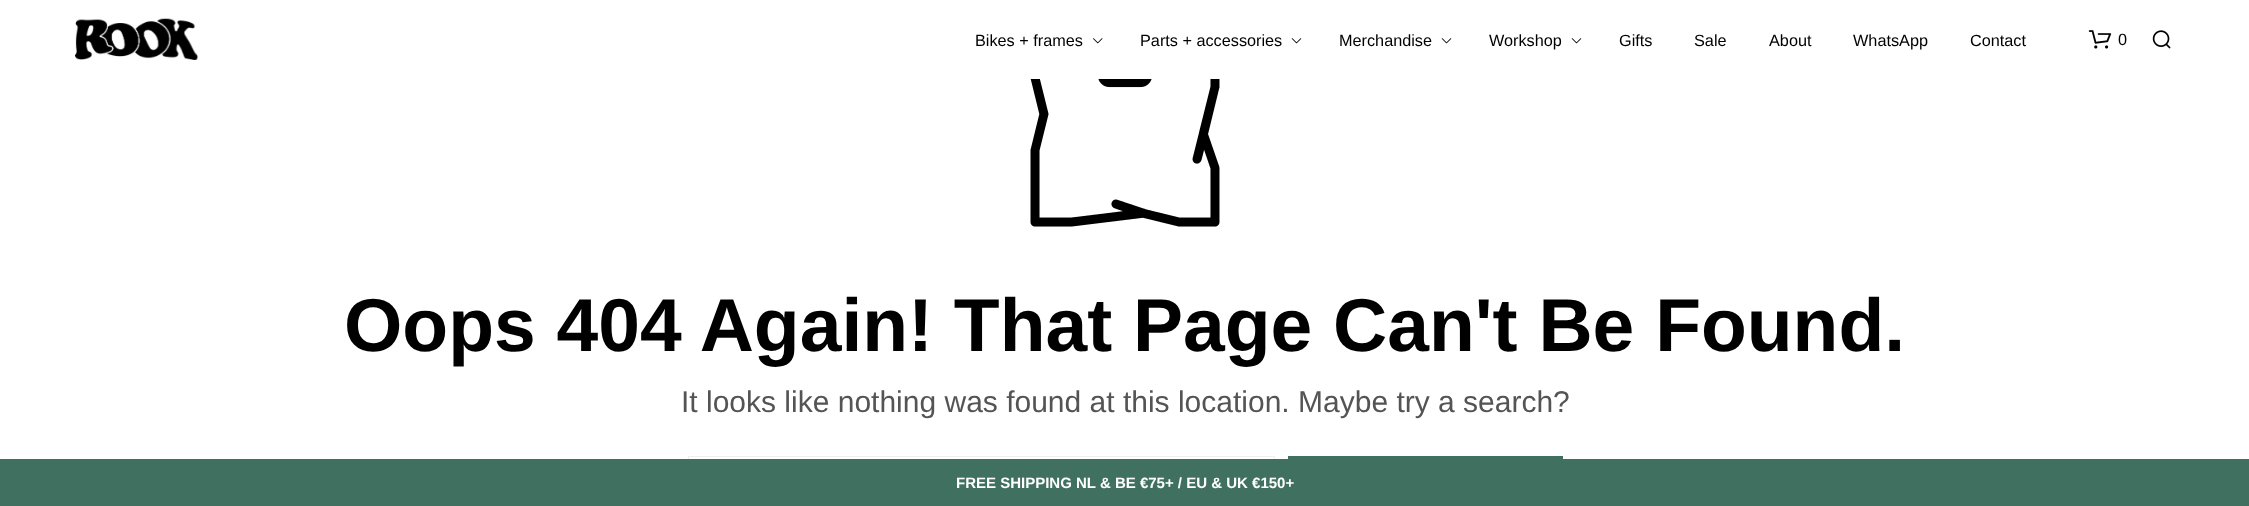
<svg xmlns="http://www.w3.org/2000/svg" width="2249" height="506">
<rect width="100%" height="100%" fill="#fff"/>
<image x="75" y="18" width="123" height="42" href="media/1.png"/>
<text x="975" y="46" style="font-family:Liberation Sans;font-size:16.25px;fill:#000">Bikes + frames</text>
<image x="1093" y="38" width="10" height="6" href="media/2.png"/>
<text x="1140" y="46" style="font-family:Liberation Sans;font-size:16.25px;fill:#000">Parts + accessories</text>
<image x="1291" y="38" width="11" height="6" href="media/3.png"/>
<text x="1339" y="46" style="font-family:Liberation Sans;font-size:16.25px;fill:#000">Merchandise</text>
<image x="1441" y="38" width="11" height="6" href="media/3.png"/>
<text x="1489" y="46" style="font-family:Liberation Sans;font-size:16.25px;fill:#000">Workshop</text>
<image x="1571" y="38" width="11" height="6" href="media/3.png"/>
<text x="1619" y="46" style="font-family:Liberation Sans;font-size:16.25px;fill:#000">Gifts</text>
<text x="1694" y="46" style="font-family:Liberation Sans;font-size:16.25px;fill:#000">Sale</text>
<text x="1769" y="46" style="font-family:Liberation Sans;font-size:16.25px;fill:#000">About</text>
<text x="1853" y="46" style="font-family:Liberation Sans;font-size:16.25px;fill:#000">WhatsApp</text>
<text x="1970" y="46" style="font-family:Liberation Sans;font-size:16.25px;fill:#000">Contact</text>
<image x="2088" y="30" width="24" height="19" href="media/4.png"/>
<text x="2118" y="45" style="font-family:Liberation Sans;font-size:16.25px;fill:#000">0</text>
<image x="2152" y="30" width="19" height="19" href="media/5.png"/>
<image x="1030" y="79" width="190" height="148" href="media/6.png"/>
<text x="344" y="351" style="font-family:Liberation Sans;font-size:75px;font-weight:bold;fill:#000">Oops 404 Again! That Page Can't Be Found.</text>
<text x="681" y="412" style="font-family:Liberation Sans;font-size:30px;fill:#545454">It looks like nothing was found at this location. Maybe try a search?</text>
<rect x="688.5" y="456.5" width="586" height="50" fill="none" stroke="#eee"/>
<rect x="1288" y="456" width="275" height="3" fill="#407060"/>
<rect y="459" width="2249" height="47" fill="#407060"/>
<text x="956" y="488" style="font-family:Liberation Sans;font-size:15px;font-weight:bold;fill:#fff">FREE SHIPPING NL &amp; BE €75+ / EU &amp; UK €150+</text>
</svg>
